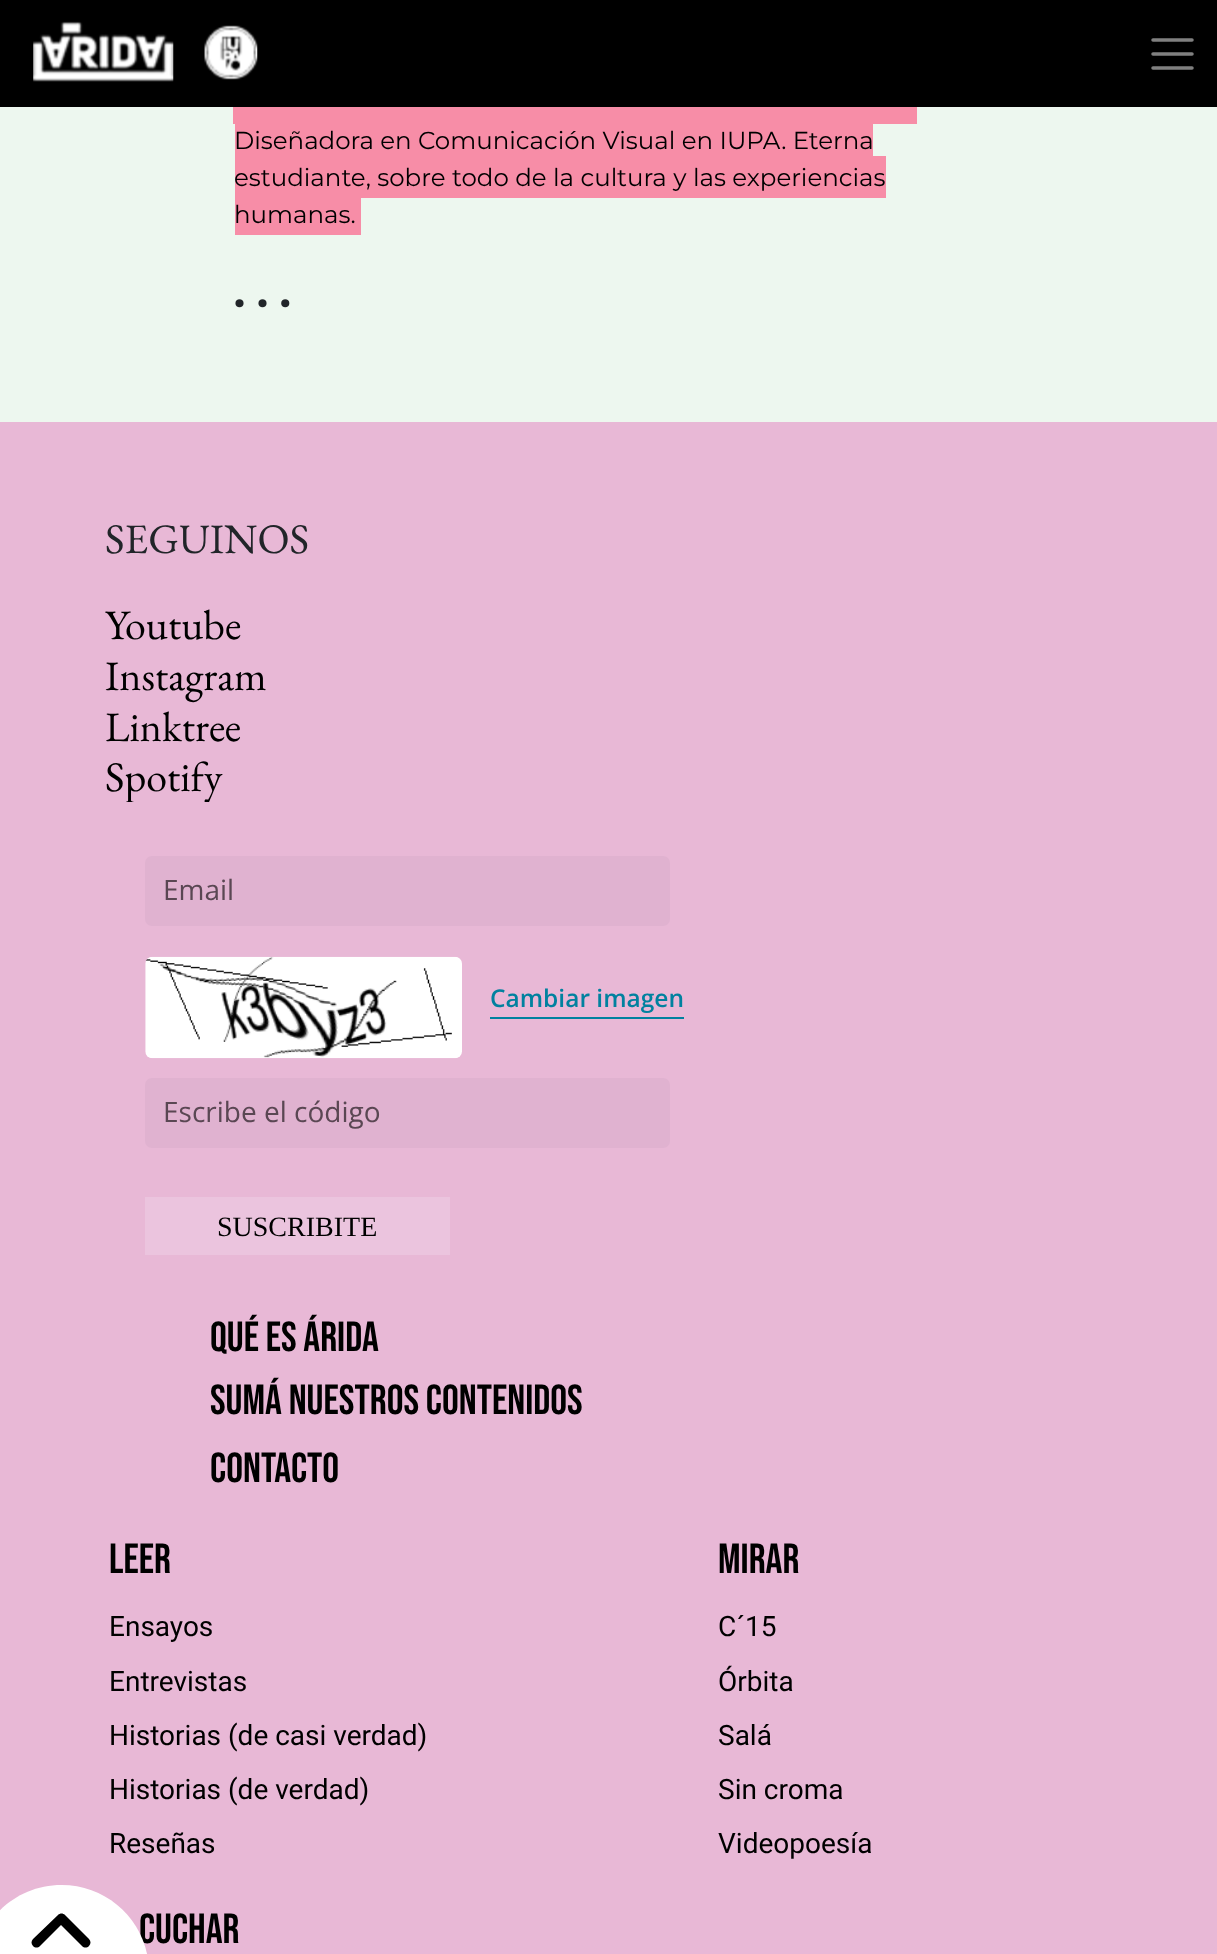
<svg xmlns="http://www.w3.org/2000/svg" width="1217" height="1954">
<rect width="100%" height="100%" fill="#e8b8d6"/>
<rect width="1217" height="107" fill="#000"/>
<image x="33" y="21" width="141" height="61" href="media/1.png"/>
<image x="204" y="25" width="54" height="55" href="media/2.png"/>
<path d="M1153 40h39m-39 14h39m-39 14h39" fill="none" stroke="#808080" stroke-width="3.5" stroke-linecap="round"/>
<rect y="107" width="1217" height="315" fill="#edf7ef"/>
<rect x="235" y="124" width="638" height="32" fill="#f78da7"/>
<text x="234" y="149" style="font-family:Montserrat;font-size:24.5px;fill:#000">Diseñadora en Comunicación Visual en IUPA. Eterna</text>
<rect x="233" y="107" width="684" height="17" fill="#f78da7"/>
<rect x="235" y="156" width="651" height="42" fill="#f78da7"/>
<text x="234" y="186" style="font-family:Montserrat;font-size:24.5px;fill:#000">estudiante, sobre todo de la cultura y las experiencias</text>
<rect x="235" y="198" width="126" height="37" fill="#f78da7"/>
<text x="234" y="223" style="font-family:Montserrat;font-size:24.5px;fill:#000">humanas.</text>
<text x="234" y="307" style="font-family:Montserrat;font-size:42px;font-weight:bold;fill:#212529">. . .</text>
<text x="139" y="1943" style="font-family:Bebas Neue;font-size:42px;fill:#000">cuchar</text>
<path d="M61.5 1885c48.5 0 87.5 39 87.5 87.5v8.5h-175v-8.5c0-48.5 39-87.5 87.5-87.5z" fill="#fff"/>
<path d="M58 1915c2-2 5-2 7 0l24 24c2 2 2 5 0 7c-2 2-5 2-7 0l-21-21l-21 21c-2 2-5 2-7 0c-2-2-2-5 0-7z" fill="#000"/>
<text x="105" y="553" style="font-family:EB Garamond;font-size:42px;fill:#212529">SEGUINOS</text>
<text x="105" y="639" style="font-family:EB Garamond;font-size:42px;fill:#000">Youtube</text>
<text x="105" y="690" style="font-family:EB Garamond;font-size:42px;fill:#000">Instagram</text>
<text x="105" y="741" style="font-family:EB Garamond;font-size:42px;fill:#000">Linktree</text>
<text x="105" y="791" style="font-family:EB Garamond;font-size:42px;fill:#000">Spotify</text>
<rect x="125" y="802" width="84" height="1" fill="#e8b8d6"/>
<rect x="145" y="856" width="525" height="70" rx="7" fill="#e0b2d0"/>
<text x="163" y="900" style="font-family:Open Sans;font-size:28px;fill:#5a4753">Email</text>
<image x="145" y="956" width="317" height="103" href="media/3.png"/>
<rect x="490" y="1017" width="194" height="2" fill="#00819f"/>
<text x="490" y="1007" style="font-family:Open Sans;font-size:24.5px;font-weight:600;fill:#00819f">Cambiar imagen</text>
<rect x="145" y="1078" width="525" height="70" rx="7" fill="#e0b2d0"/>
<text x="163" y="1122" style="font-family:Open Sans;font-size:28px;fill:#5a4753">Escribe el código</text>
<rect x="145" y="1197" width="305" height="58" fill="#ebc4de"/>
<text x="217" y="1236" style="font-family:Liberation Serif;font-size:28px;fill:#000">SUSCRIBITE</text>
<text x="210" y="1351" style="font-family:Bebas Neue;font-size:42px;fill:#000">Qué es Árida</text>
<text x="210" y="1414" style="font-family:Bebas Neue;font-size:42px;fill:#000">Sumá nuestros contenidos</text>
<text x="210" y="1482" style="font-family:Bebas Neue;font-size:42px;fill:#000">Contacto</text>
<text x="109" y="1573" style="font-family:Bebas Neue;font-size:42px;fill:#000">Leer</text>
<text x="109" y="1636" style="font-family:Roboto;font-size:28px;fill:#000">Ensayos</text>
<text x="109" y="1691" style="font-family:Roboto;font-size:28px;fill:#000">Entrevistas</text>
<text x="109" y="1745" style="font-family:Roboto;font-size:28px;fill:#000">Historias (de casi verdad)</text>
<text x="109" y="1799" style="font-family:Roboto;font-size:28px;fill:#000">Historias (de verdad)</text>
<text x="109" y="1853" style="font-family:Roboto;font-size:28px;fill:#000">Reseñas</text>
<text x="718" y="1573" style="font-family:Bebas Neue;font-size:42px;fill:#000">Mirar</text>
<text x="718" y="1636" style="font-family:Roboto;font-size:28px;fill:#000">C´15</text>
<text x="718" y="1691" style="font-family:Roboto;font-size:28px;fill:#000">Órbita</text>
<text x="718" y="1745" style="font-family:Roboto;font-size:28px;fill:#000">Salá</text>
<text x="718" y="1799" style="font-family:Roboto;font-size:28px;fill:#000">Sin croma</text>
<text x="718" y="1853" style="font-family:Roboto;font-size:28px;fill:#000">Videopoesía</text>
</svg>
